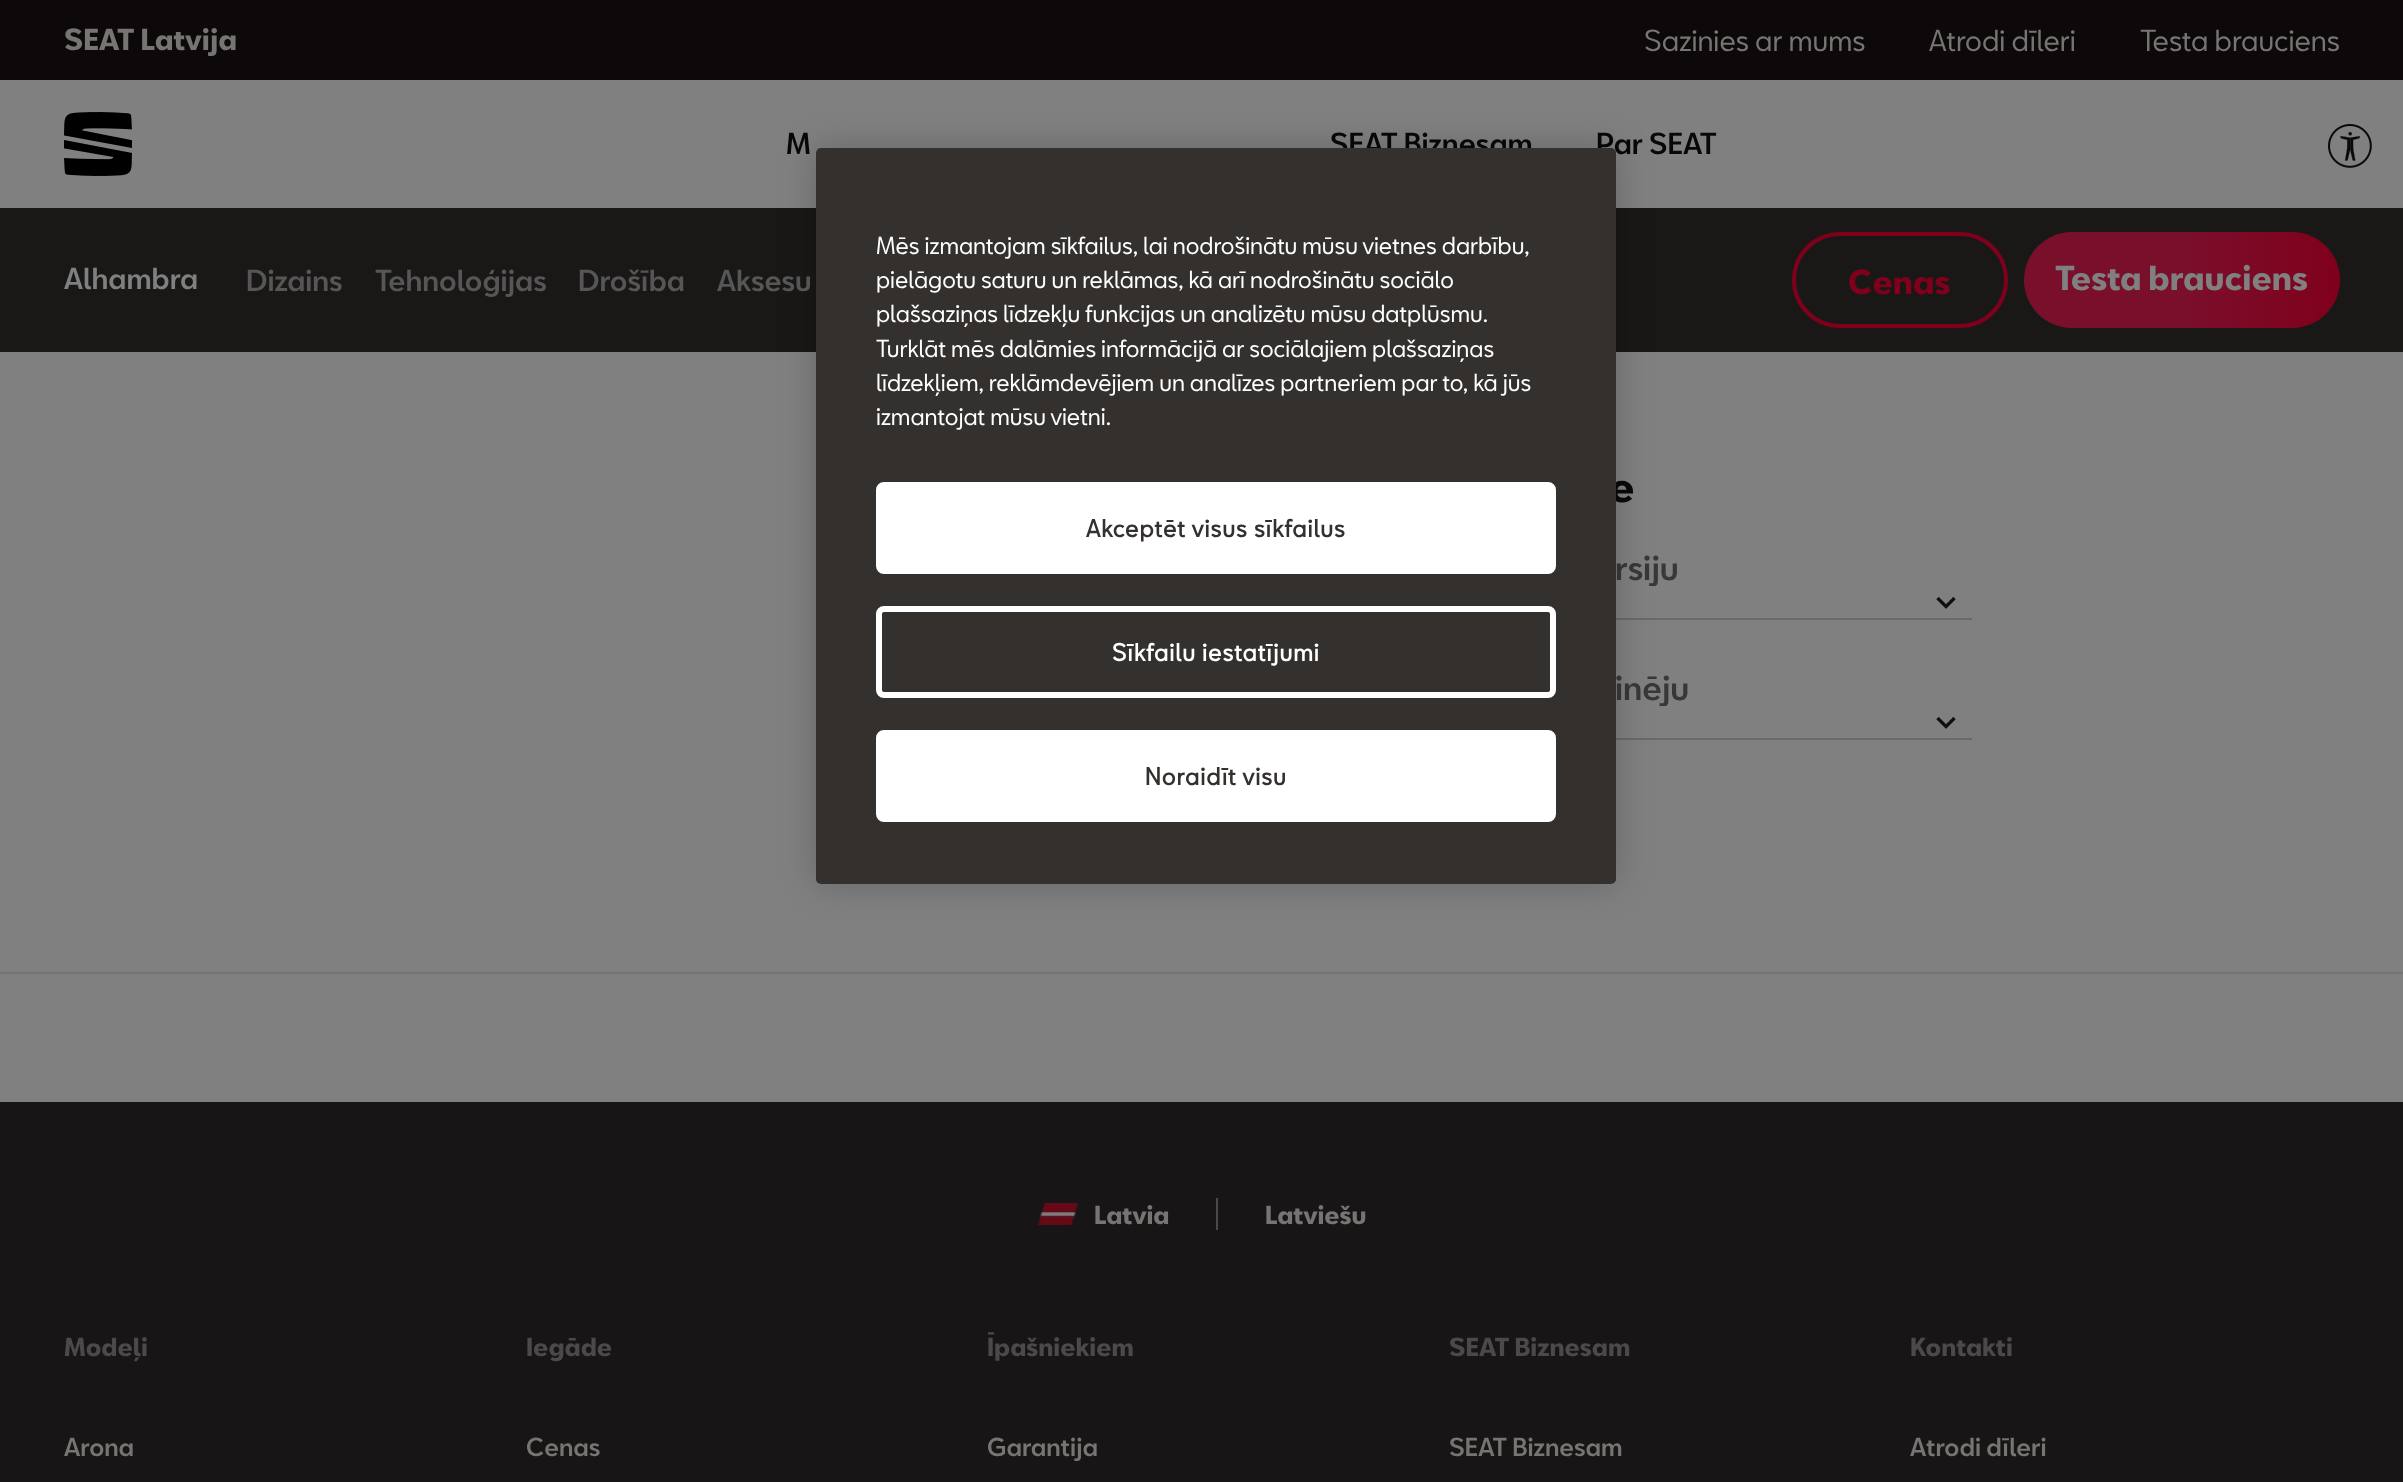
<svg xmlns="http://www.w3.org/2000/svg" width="2403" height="1482">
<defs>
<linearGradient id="g1" gradientUnits="userSpaceOnUse" x1="2024" y1="280" x2="2340" y2="280"><stop offset="0.5" stop-color="#7a0f2c"/><stop offset="1" stop-color="#80001b"/></linearGradient>
<clipPath id="clip1"><rect x="988" y="1326" width="428" height="40"/></clipPath>
</defs>
<rect width="100%" height="100%" fill="#808080"/>
<rect width="2403" height="80" fill="#0d080a"/>
<text x="64" y="50" style="font-family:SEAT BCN;font-size:28px;font-weight:bold;fill:#767571">SEAT Latvija</text>
<text x="1644" y="51" style="font-family:SEAT BCN;font-size:28px;fill:#767571">Sazinies ar mums</text>
<text x="1929" y="51" style="font-family:SEAT BCN;font-size:28px;fill:#767571">Atrodi dīleri</text>
<text x="2140" y="51" style="font-family:SEAT BCN;font-size:28px;fill:#767571">Testa brauciens</text>
<image x="64" y="112" width="68" height="64" href="media/1.png"/>
<text x="786" y="154" style="font-family:SEAT BCN;font-size:28px;font-weight:500;fill:#080808">M</text>
<text x="1330" y="154" style="font-family:SEAT BCN;font-size:28px;font-weight:500;fill:#080808">SEAT Biznesam</text>
<text x="1596" y="154" style="font-family:SEAT BCN;font-size:28px;font-weight:500;fill:#080808">Par SEAT</text>
<image x="2328" y="124" width="44" height="44" href="media/2.png"/>
<rect y="208" width="2403" height="144" fill="#1a1817"/>
<text x="1615" y="580" style="font-family:SEAT BCN;font-size:32px;font-weight:500;fill:#383838">rsiju</text>
<rect x="1648" y="586" width="7" height="1" fill="#808080"/>
<rect x="1616" y="618" width="356" height="2" fill="#676a6d"/>
<text x="1615" y="700" style="font-family:SEAT BCN;font-size:32px;font-weight:500;fill:#383838">inēju</text>
<rect x="1659" y="706" width="7" height="1" fill="#808080"/>
<rect x="1616" y="738" width="356" height="2" fill="#676a6d"/>
<rect x="816" y="148" width="800" height="736" rx="5" fill="#00000033" filter="blur(18px)"/>
<text x="1609" y="502" style="font-family:SEAT BCN;font-size:40px;font-weight:bold;fill:#080808">e</text>
<rect x="816" y="148" width="800" height="736" rx="5" fill="#33302e"/>
<text x="876" y="254" style="font-family:SEAT BCN;font-size:22.75px;fill:#fff">Mēs izmantojam sīkfailus, lai nodrošinātu mūsu vietnes darbību,</text>
<text x="876" y="288" style="font-family:SEAT BCN;font-size:22.75px;fill:#fff">pielāgotu saturu un reklāmas, kā arī nodrošinātu sociālo</text>
<text x="876" y="322" style="font-family:SEAT BCN;font-size:22.75px;fill:#fff">plašsaziņas līdzekļu funkcijas un analizētu mūsu datplūsmu.</text>
<text x="876" y="357" style="font-family:SEAT BCN;font-size:22.75px;fill:#fff">Turklāt mēs dalāmies informācijā ar sociālajiem plašsaziņas</text>
<text x="876" y="391" style="font-family:SEAT BCN;font-size:22.75px;fill:#fff">līdzekļiem, reklāmdevējiem un analīzes partneriem par to, kā jūs</text>
<text x="876" y="425" style="font-family:SEAT BCN;font-size:22.75px;fill:#fff">izmantojat mūsu vietni.</text>
<rect x="879" y="485" width="674" height="86" rx="5" fill="#fff" stroke="#fff" stroke-width="6"/>
<text x="1086" y="537" style="font-family:'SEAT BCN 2';font-size:22.75px;font-weight:bold;letter-spacing:1.1px;fill:#33302e">Akceptēt visus sīkfailus</text>
<rect x="879" y="609" width="674" height="86" rx="5" fill="none" stroke="#fff" stroke-width="6"/>
<text x="1112" y="661" style="font-family:'SEAT BCN 2';font-size:22.75px;font-weight:bold;letter-spacing:1.1px;fill:#fff">Sīkfailu iestatījumi</text>
<rect x="879" y="733" width="674" height="86" rx="5" fill="#fff" stroke="#fff" stroke-width="6"/>
<text x="1145" y="785" style="font-family:'SEAT BCN 2';font-size:22.75px;font-weight:bold;letter-spacing:1.1px;fill:#33302e">Noraidīt visu</text>
<text x="64" y="289" style="font-family:SEAT BCN;font-size:28px;font-weight:500;fill:#808080">Alhambra</text>
<text x="246" y="291" style="font-family:SEAT BCN;font-size:28px;font-weight:500;fill:#575656">Dizains</text>
<text x="375" y="291" style="font-family:SEAT BCN;font-size:28px;font-weight:500;fill:#575656">Tehnoloģijas</text>
<text x="578" y="291" style="font-family:SEAT BCN;font-size:28px;font-weight:500;fill:#575656">Drošība</text>
<text x="717" y="291" style="font-family:SEAT BCN;font-size:28px;font-weight:500;fill:#575656">Aksesu</text>
<rect x="1794" y="234" width="212" height="92" rx="46" fill="none" stroke="#80001b" stroke-width="4"/>
<text x="1848" y="294" style="font-family:SEAT BCN;font-size:32px;font-weight:bold;fill:#80001b">Cenas</text>
<rect x="2024" y="232" width="316" height="96" rx="48" fill="url(#g1)"/>
<text x="2055" y="290" style="font-family:SEAT BCN;font-size:32px;font-weight:bold;fill:#808080">Testa brauciens</text>
<image x="1936" y="597" width="20" height="12" href="media/3.png"/>
<image x="1936" y="717" width="20" height="12" href="media/3.png"/>
<rect y="972" width="2403" height="2" fill="#747474"/>
<rect y="1102" width="2403" height="380" fill="#171516"/>
<image x="1038" y="1203" width="40" height="22" href="media/4.png"/>
<text x="1094" y="1224" style="font-family:SEAT BCN;font-size:24px;font-weight:bold;fill:#767571">Latvia</text>
<rect x="1216" y="1198" width="2" height="32" fill="#4c4948"/>
<text x="1265" y="1224" style="font-family:SEAT BCN;font-size:24px;font-weight:bold;fill:#767571">Latviešu</text>
<text x="64" y="1356" style="font-family:SEAT BCN;font-size:24px;font-weight:bold;fill:#4c4948">Modeļi</text>
<text x="64" y="1456" style="font-family:SEAT BCN;font-size:24px;font-weight:500;fill:#767571">Arona</text>
<text x="526" y="1356" style="font-family:SEAT BCN;font-size:24px;font-weight:bold;fill:#4c4948">Iegāde</text>
<text x="526" y="1456" style="font-family:SEAT BCN;font-size:24px;font-weight:500;fill:#767571">Cenas</text>
<g clip-path="url(#clip1)">
<text x="987" y="1356" style="font-family:SEAT BCN;font-size:24px;font-weight:bold;fill:#4c4948">Īpašniekiem</text>
</g>
<text x="987" y="1456" style="font-family:SEAT BCN;font-size:24px;font-weight:500;fill:#767571">Garantija</text>
<text x="1449" y="1356" style="font-family:SEAT BCN;font-size:24px;font-weight:bold;fill:#4c4948">SEAT Biznesam</text>
<text x="1449" y="1456" style="font-family:SEAT BCN;font-size:24px;font-weight:500;fill:#767571">SEAT Biznesam</text>
<text x="1910" y="1356" style="font-family:SEAT BCN;font-size:24px;font-weight:bold;fill:#4c4948">Kontakti</text>
<text x="1910" y="1456" style="font-family:SEAT BCN;font-size:24px;font-weight:500;fill:#767571">Atrodi dīleri</text>
</svg>
